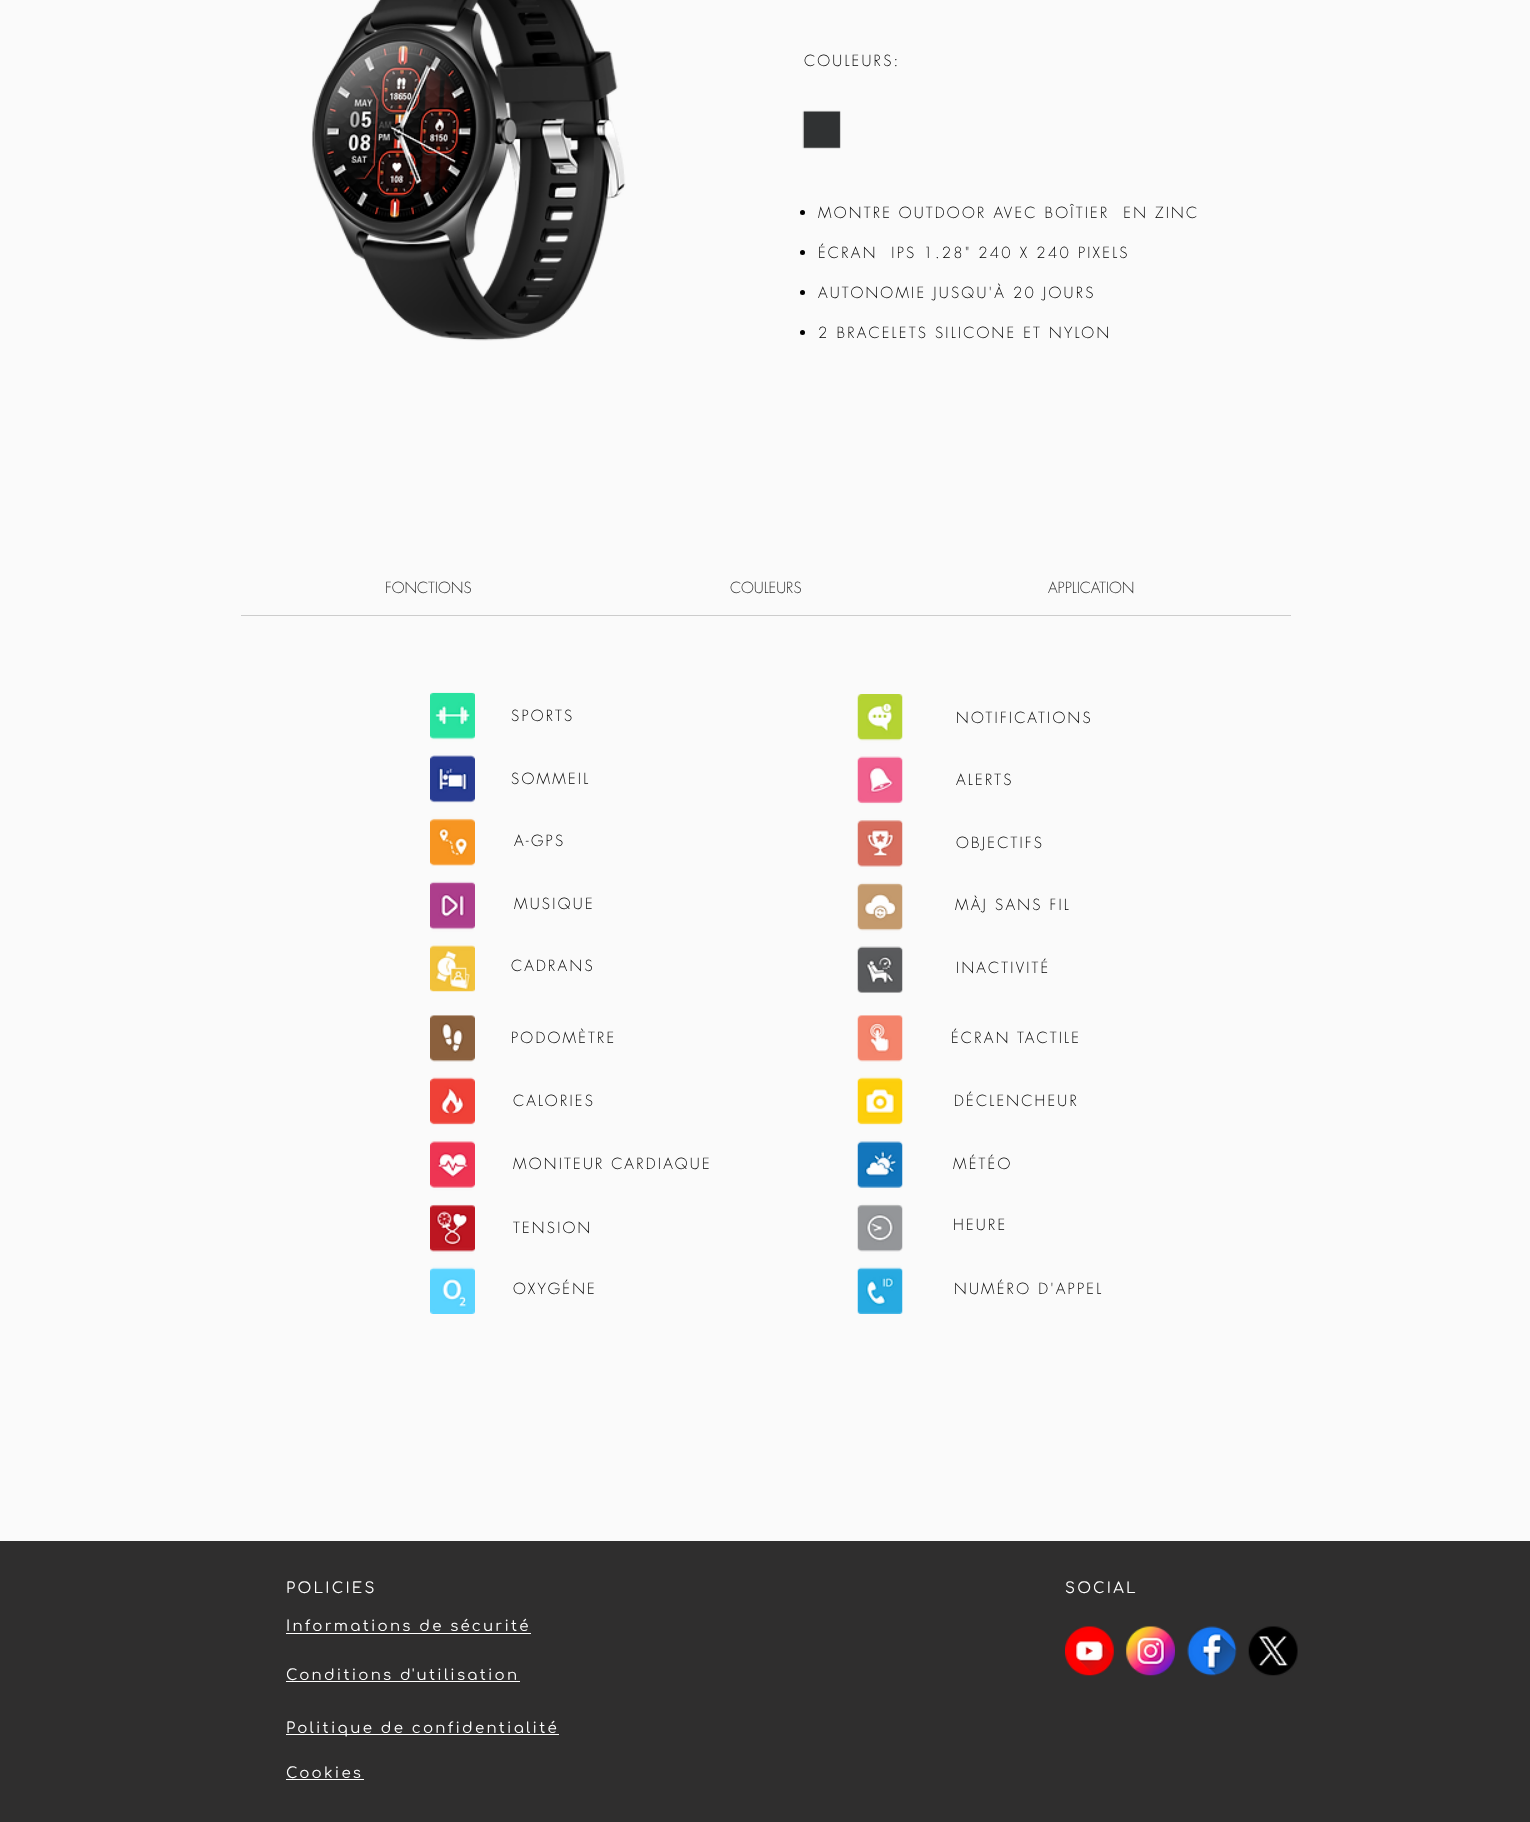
<svg xmlns="http://www.w3.org/2000/svg" width="1530" height="1822">
<rect width="100%" height="100%" fill="#fafafa"/>
<image x="311" y="0" width="315" height="341" href="media/1.png"/>
<text x="804" y="66" style="font-family:futura;font-size:15px;font-weight:300;letter-spacing:2.25px;fill:#000">COULEURS:</text>
<image x="802" y="110" width="39" height="39" href="media/2.png"/>
<circle cx="802.5" cy="212.5" r="2.5" fill="#000"/>
<text x="818" y="218" style="font-family:futura;font-size:15px;font-weight:300;letter-spacing:2.25px;fill:#000" xml:space="preserve">MONTRE OUTDOOR AVEC BOÎTIER  EN ZINC</text>
<circle cx="802.5" cy="252.5" r="2.5" fill="#000"/>
<text x="818" y="258" style="font-family:futura;font-size:15px;font-weight:300;letter-spacing:2.25px;fill:#000" xml:space="preserve">ÉCRAN  IPS 1.28" 240 X 240 PIXELS</text>
<circle cx="802.5" cy="292.5" r="2.5" fill="#000"/>
<text x="818" y="298" style="font-family:futura;font-size:15px;font-weight:300;letter-spacing:2.25px;fill:#000">AUTONOMIE JUSQU'À 20 JOURS</text>
<circle cx="802.5" cy="332.5" r="2.5" fill="#000"/>
<text x="818" y="338" style="font-family:futura;font-size:15px;font-weight:300;letter-spacing:2.25px;fill:#000">2 BRACELETS SILICONE ET NYLON</text>
<text x="385" y="593" style="font-family:futura;font-size:15px;font-weight:300;fill:#2d2d2d">FONCTIONS</text>
<text x="730" y="593" style="font-family:futura;font-size:15px;font-weight:300;fill:#2d2d2d">COULEURS</text>
<text x="1048" y="593" style="font-family:futura;font-size:15px;font-weight:300;fill:#2d2d2d">APPLICATION</text>
<rect x="241" y="615" width="1050" height="1" fill="#ccc"/>
<image x="430" y="692" width="45" height="300" href="media/3.png"/>
<text x="511" y="721" style="font-family:futura;font-size:15px;font-weight:300;letter-spacing:2.25px;fill:#000">SPORTS</text>
<text x="511" y="784" style="font-family:futura;font-size:15px;font-weight:300;letter-spacing:2.25px;fill:#000">SOMMEIL</text>
<text x="514" y="846" style="font-family:futura;font-size:15px;font-weight:300;letter-spacing:2.25px;fill:#000">A-GPS</text>
<text x="514" y="909" style="font-family:futura;font-size:15px;font-weight:300;letter-spacing:2.25px;fill:#000">MUSIQUE</text>
<text x="511" y="971" style="font-family:futura;font-size:15px;font-weight:300;letter-spacing:2.25px;fill:#000">CADRANS</text>
<image x="857" y="694" width="46" height="299" href="media/4.png"/>
<text x="956" y="723" style="font-family:futura;font-size:15px;font-weight:300;letter-spacing:2.25px;fill:#000">NOTIFICATIONS</text>
<text x="956" y="785" style="font-family:futura;font-size:15px;font-weight:300;letter-spacing:2.25px;fill:#000">ALERTS</text>
<text x="956" y="848" style="font-family:futura;font-size:15px;font-weight:300;letter-spacing:2.25px;fill:#000">OBJECTIFS</text>
<text x="955" y="910" style="font-family:futura;font-size:15px;font-weight:300;letter-spacing:2.25px;fill:#000">MÀJ SANS FIL</text>
<text x="956" y="973" style="font-family:futura;font-size:15px;font-weight:300;letter-spacing:2.25px;fill:#000">INACTIVITÉ</text>
<image x="430" y="1015" width="45" height="299" href="media/5.png"/>
<text x="511" y="1043" style="font-family:futura;font-size:15px;font-weight:300;letter-spacing:2.25px;fill:#000">PODOMÈTRE</text>
<text x="513" y="1106" style="font-family:futura;font-size:15px;font-weight:300;letter-spacing:2.25px;fill:#000">CALORIES</text>
<text x="513" y="1169" style="font-family:futura;font-size:15px;font-weight:300;letter-spacing:2.25px;fill:#000">MONITEUR CARDIAQUE</text>
<text x="513" y="1233" style="font-family:futura;font-size:15px;font-weight:300;letter-spacing:2.25px;fill:#000">TENSION</text>
<text x="513" y="1294" style="font-family:futura;font-size:15px;font-weight:300;letter-spacing:2.25px;fill:#000">OXYGÉNE</text>
<image x="857" y="1015" width="46" height="299" href="media/6.png"/>
<text x="951" y="1043" style="font-family:futura;font-size:15px;font-weight:300;letter-spacing:2.25px;fill:#000">ÉCRAN TACTILE</text>
<text x="954" y="1106" style="font-family:futura;font-size:15px;font-weight:300;letter-spacing:2.25px;fill:#000">DÉCLENCHEUR</text>
<text x="953" y="1169" style="font-family:futura;font-size:15px;font-weight:300;letter-spacing:2.25px;fill:#000">MÉTÉO</text>
<text x="953" y="1230" style="font-family:futura;font-size:15px;font-weight:300;letter-spacing:2.25px;fill:#000">HEURE</text>
<text x="954" y="1294" style="font-family:futura;font-size:15px;font-weight:300;letter-spacing:2.25px;fill:#000">NUMÉRO D'APPEL</text>
<rect y="1541" width="1530" height="281" fill="#2f2e2e"/>
<text x="286" y="1593" style="font-family:Comfortaa;font-size:15px;letter-spacing:2.25px;fill:#fff">POLICIES</text>
<text x="1065" y="1593" style="font-family:Comfortaa;font-size:15px;letter-spacing:2.25px;fill:#fff">SOCIAL</text>
<text x="286" y="1631" style="font-family:Comfortaa;font-size:15px;letter-spacing:2.25px;fill:#fff">Informations de sécurité</text>
<rect x="286" y="1633" width="245" height="1" fill="#fff"/>
<image x="1065" y="1626" width="49" height="50" href="media/7.png"/>
<image x="1126" y="1626" width="49" height="50" href="media/8.png"/>
<image x="1187" y="1626" width="50" height="50" href="media/9.png"/>
<image x="1248" y="1626" width="50" height="50" href="media/10.png"/>
<text x="286" y="1680" style="font-family:Comfortaa;font-size:15px;letter-spacing:2.25px;fill:#fff">Conditions d'utilisation</text>
<rect x="286" y="1681" width="234" height="1" fill="#fff"/>
<rect x="286" y="1734" width="273" height="1" fill="#fff"/>
<text x="286" y="1733" style="font-family:Comfortaa;font-size:15px;letter-spacing:2.25px;fill:#fff">Politique de confidentialité</text>
<text x="286" y="1778" style="font-family:Comfortaa;font-size:15px;letter-spacing:2.25px;fill:#fff">Cookies</text>
<rect x="286" y="1779" width="78" height="1" fill="#fff"/>
</svg>
